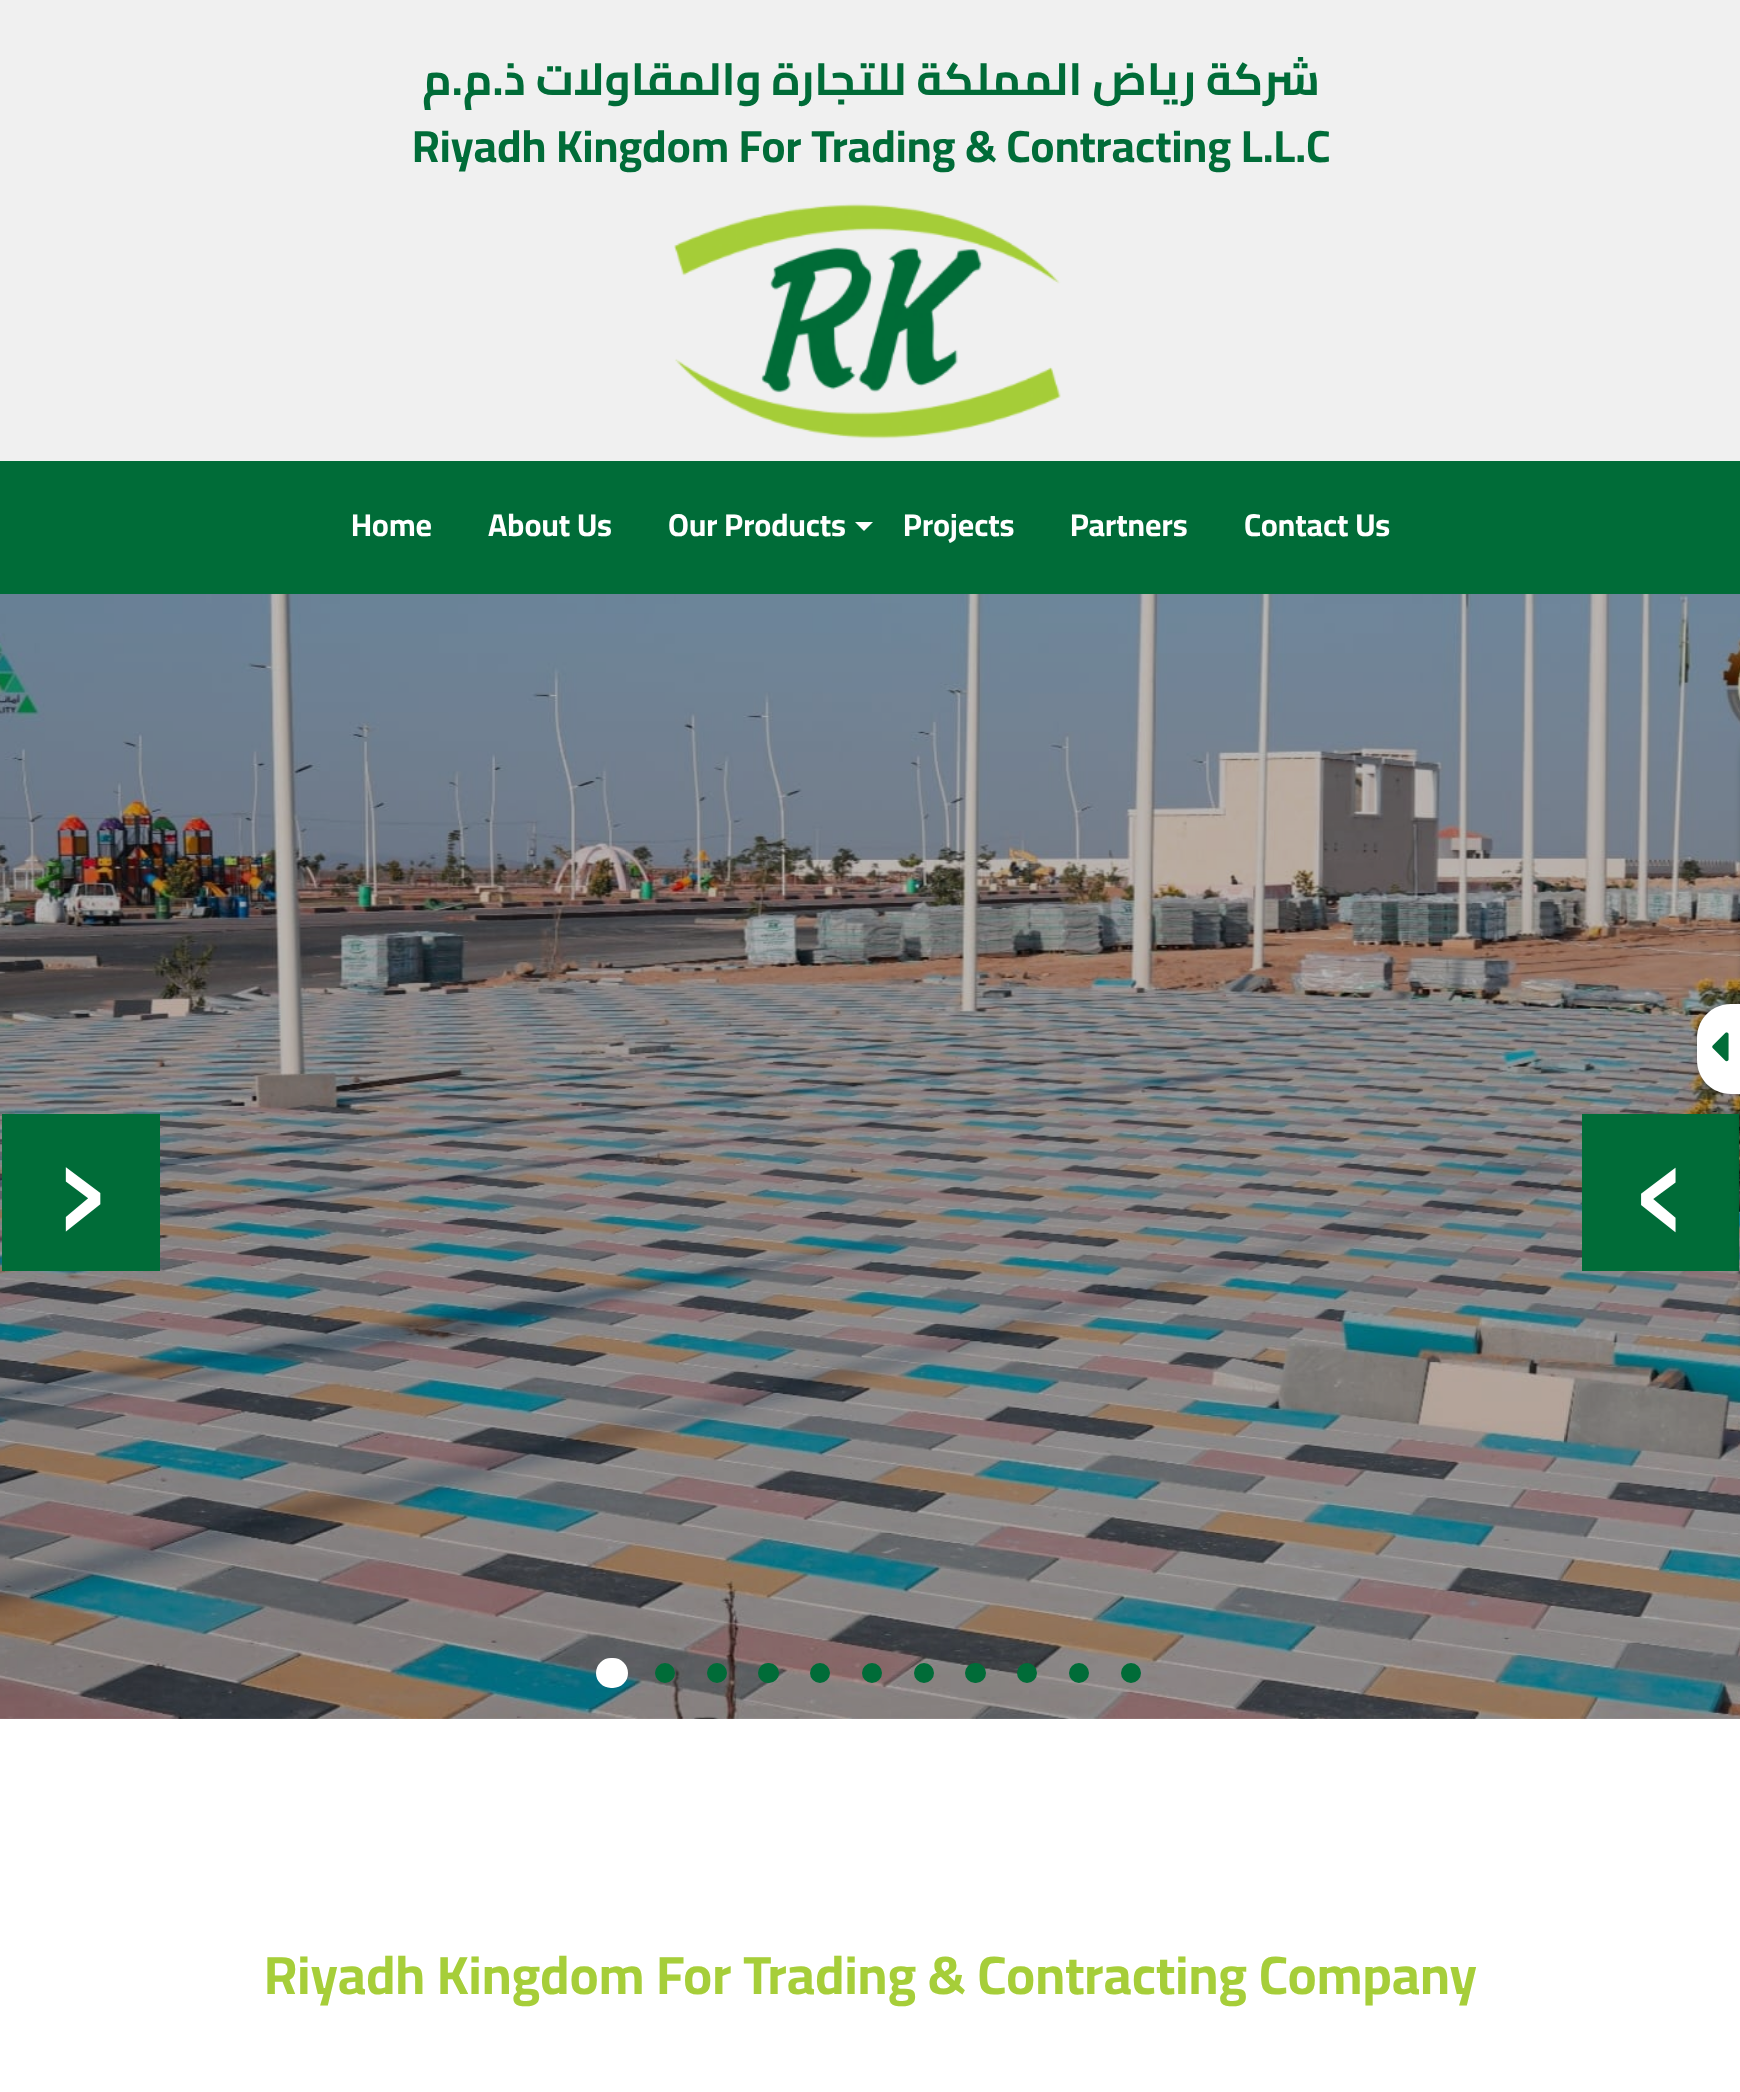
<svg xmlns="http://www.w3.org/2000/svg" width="1740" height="2092">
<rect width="100%" height="100%" fill="#fff"/>
<rect width="1740" height="461" fill="#f0f0f0"/>
<rect y="461" width="1740" height="133" fill="#006c38"/>
<text x="1320" y="95" style="font-family:Cairo;font-size:45px;font-weight:bold;direction:rtl;fill:#006c38">شركة رياض المملكة للتجارة والمقاولات ذ.م.م</text>
<text x="412" y="162" style="font-family:Cairo;font-size:45px;font-weight:bold;fill:#006c38">Riyadh Kingdom For Trading &amp; Contracting L.L.C</text>
<image x="674" y="203" width="387" height="236" href="media/1.png"/>
<text x="351" y="536" style="font-family:Cairo;font-size:31.5px;font-weight:bold;fill:#fff">Home</text>
<text x="488" y="536" style="font-family:Cairo;font-size:31.5px;font-weight:bold;fill:#fff">About Us</text>
<text x="668" y="536" style="font-family:Cairo;font-size:31.5px;font-weight:bold;fill:#fff">Our Products</text>
<path d="M855 522h18l-9 9z" fill="#fff"/>
<text x="903" y="536" style="font-family:Cairo;font-size:31.5px;font-weight:bold;fill:#fff">Projects</text>
<text x="1070" y="536" style="font-family:Cairo;font-size:31.5px;font-weight:bold;fill:#fff">Partners</text>
<text x="1244" y="536" style="font-family:Cairo;font-size:31.5px;font-weight:bold;fill:#fff">Contact Us</text>
<image x="0" y="594" width="1740" height="1125" href="media/2.png"/>
<rect x="2" y="1114" width="158" height="157" fill="#006c38"/>
<text x="54" y="1244" style="font-family:Cairo;font-size:180px;fill:#fff">›</text>
<rect x="1582" y="1114" width="157" height="157" fill="#006c38"/>
<text x="1633" y="1244" style="font-family:Cairo;font-size:180px;fill:#fff">‹</text>
<rect x="597.5" y="1659.5" width="29" height="27" rx="13.5" fill="#fff" stroke="#fff" stroke-width="3"/>
<circle cx="665" cy="1673" r="9" fill="#006c38" stroke="#006c38" stroke-width="2"/>
<circle cx="717" cy="1673" r="9" fill="#006c38" stroke="#006c38" stroke-width="2"/>
<rect x="759" y="1664" width="19" height="18" rx="9" fill="#006c38" stroke="#006c38" stroke-width="2"/>
<circle cx="820" cy="1673" r="9" fill="#006c38" stroke="#006c38" stroke-width="2"/>
<circle cx="872" cy="1673" r="9" fill="#006c38" stroke="#006c38" stroke-width="2"/>
<circle cx="924" cy="1673" r="9" fill="#006c38" stroke="#006c38" stroke-width="2"/>
<rect x="966" y="1664" width="19" height="18" rx="9" fill="#006c38" stroke="#006c38" stroke-width="2"/>
<circle cx="1027" cy="1673" r="9" fill="#006c38" stroke="#006c38" stroke-width="2"/>
<circle cx="1079" cy="1673" r="9" fill="#006c38" stroke="#006c38" stroke-width="2"/>
<circle cx="1131" cy="1673" r="9" fill="#006c38" stroke="#006c38" stroke-width="2"/>
<rect x="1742" y="727" width="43" height="641" rx="34" fill="#00000040" filter="blur(3.5px)"/>
<rect x="1697" y="1004" width="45" height="90" rx="34" fill="#00000036" filter="blur(2px)"/>
<path d="M1731 1004h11v90h-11c-19 0-34-15-34-34v-22c0-19 15-34 34-34z" fill="#fff"/>
<image x="1712" y="1032" width="17" height="30" href="media/3.png"/>
<text x="264" y="1994" style="font-family:Cairo;font-size:54px;font-weight:bold;fill:#a6ce39">Riyadh Kingdom For Trading &amp; Contracting Company</text>
</svg>
